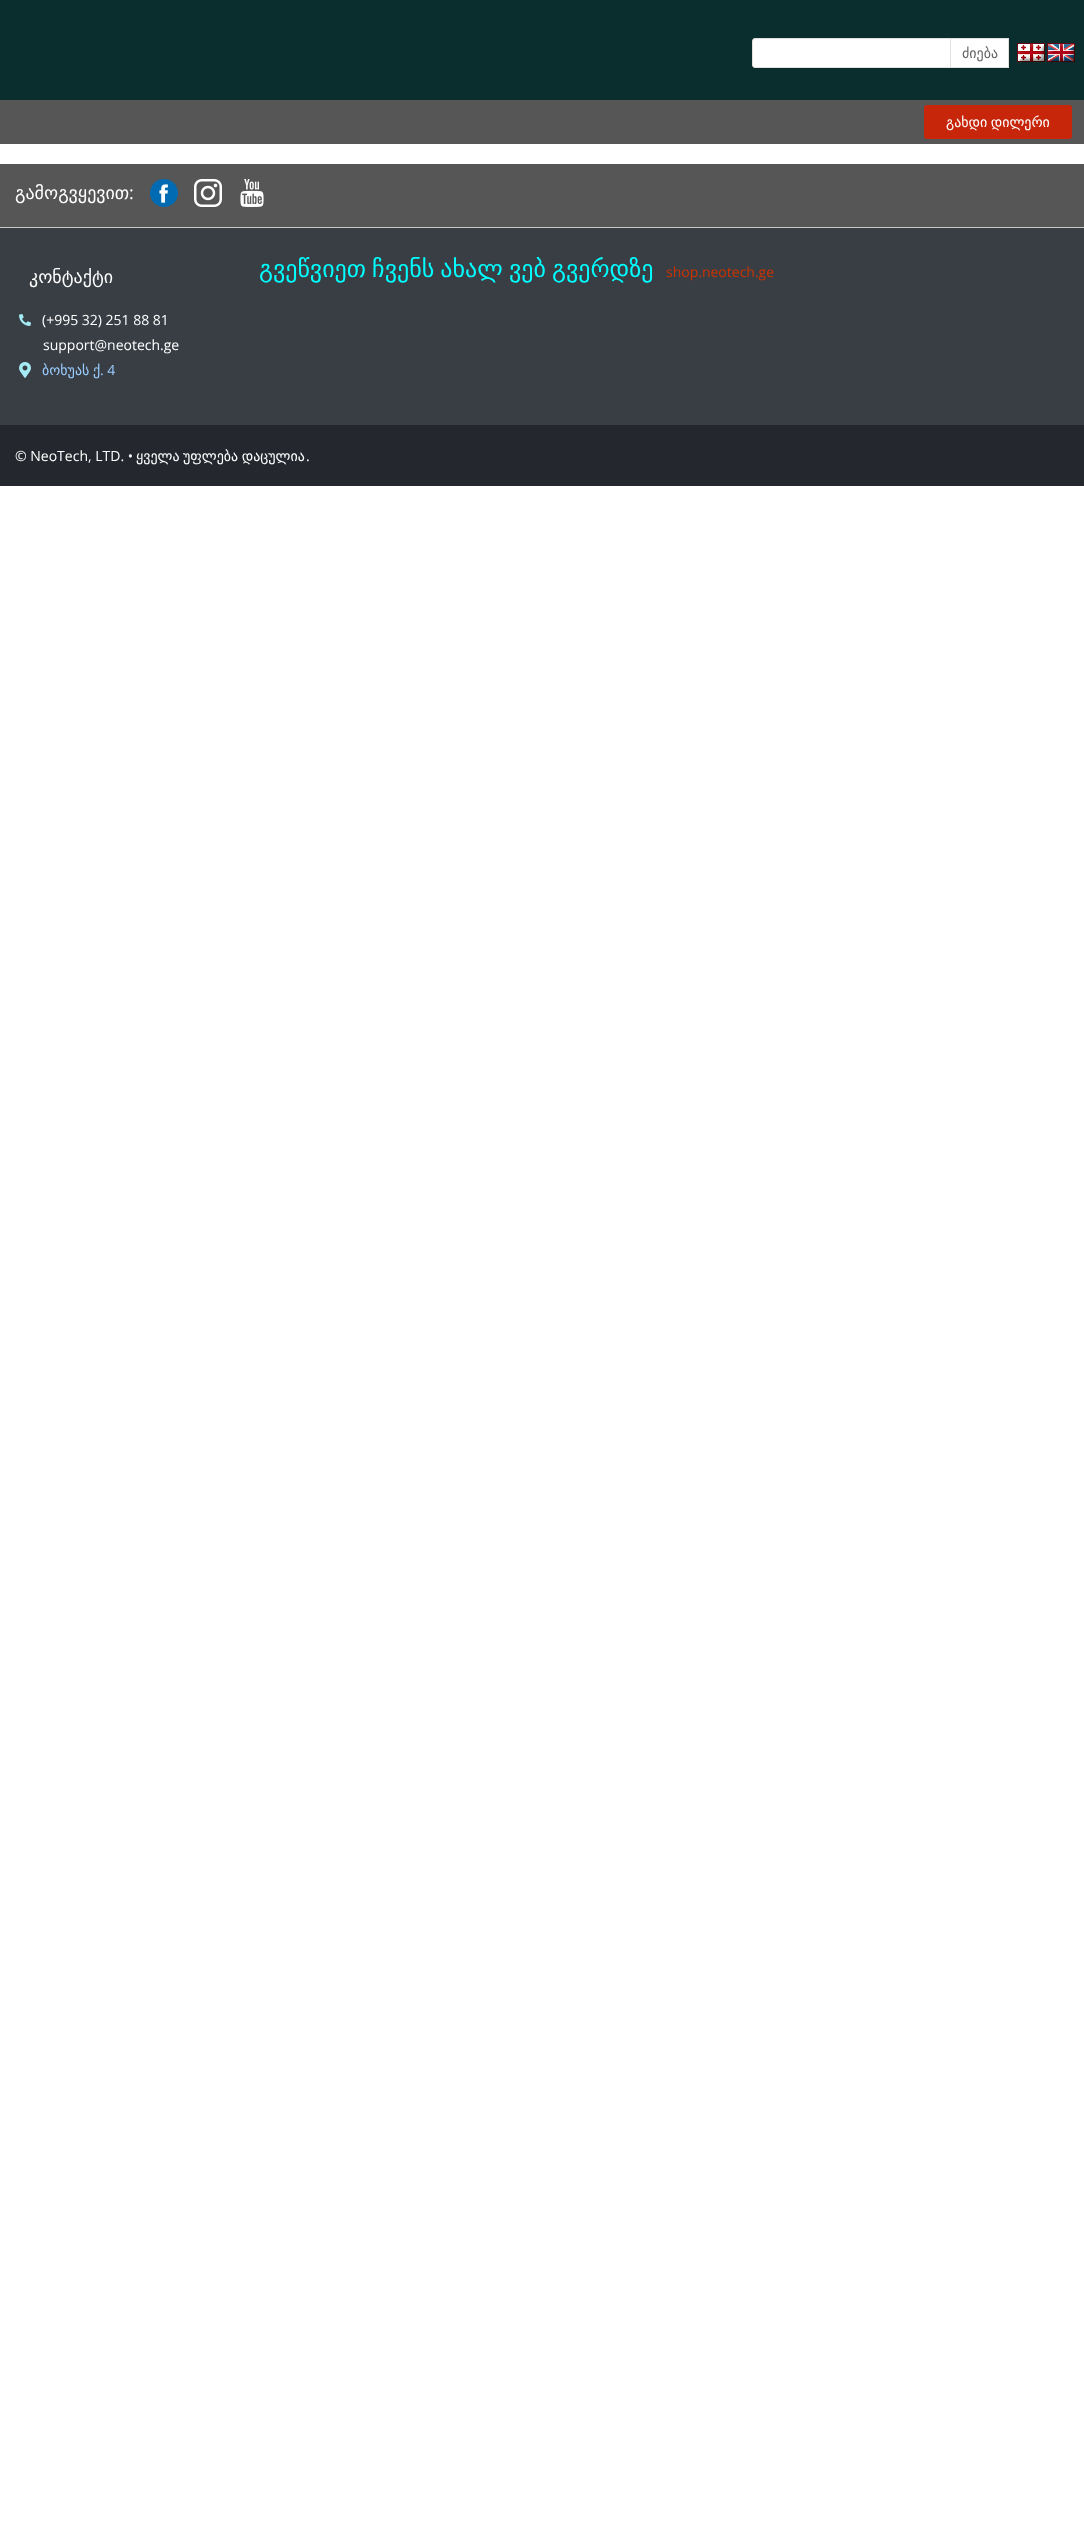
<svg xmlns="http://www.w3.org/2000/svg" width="1084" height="2521">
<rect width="100%" height="100%" fill="#fff"/>
<rect width="1084" height="100" fill="#0a2e2e"/>
<path d="M755 38h195v30h-195c-1.5 0-3-1.5-3-3v-24c0-1.5 1.5-3 3-3z" fill="#fff"/>
<path d="M755 38h195v30h-195c-2 0-3-1-3-3v-24c0-2 1-3 3-3zm0 1h195v28h-195c-1 0-2-1-2-2v-24c0-1 1-2 2-2z" fill="#93806c40" fill-rule="evenodd"/>
<rect x="950.5" y="38.5" width="58" height="29" fill="#fff" stroke="#e4dfda"/>
<text x="962" y="58" style="font-family:DejaVu Sans;font-size:14px;fill:#666">ძიება</text>
<image x="1017" y="43" width="28" height="19" href="media/1.png"/>
<image x="1047" y="43" width="28" height="19" href="media/2.png"/>
<rect y="100" width="1084" height="44" fill="#565656"/>
<rect x="924" y="105" width="148" height="34" rx="3" fill="#c7260b"/>
<text x="946" y="127" word-spacing="-1" style="font-family:DejaVu Sans;font-size:14px;fill:#fff">გახდი დილერი</text>
<rect y="164" width="1084" height="63" fill="#565656"/>
<text x="15" y="199" style="font-family:DejaVu Sans;font-size:18px;fill:#fff">გამოგვყევით</text>
<text x="129" y="199" style="font-family:Open Sans;font-size:18px;fill:#fff">:</text>
<image x="150" y="179" width="28" height="28" href="media/3.png"/>
<image x="194" y="179" width="28" height="28" href="media/4.png"/>
<image x="240" y="179" width="24" height="28" href="media/5.png"/>
<rect y="227" width="1084" height="1" fill="#c9c9c9"/>
<rect y="228" width="1084" height="197" fill="#393e45"/>
<text x="29" y="283" style="font-family:DejaVu Sans;font-size:18px;fill:#fff">კონტაქტი</text>
<image x="19" y="314" width="12" height="12" href="media/6.png"/>
<text x="42" y="325" style="font-family:Open Sans;font-size:14px;fill:#fff">(+995 32) 251 88 81</text>
<text x="43" y="350" style="font-family:Open Sans;font-size:14px;fill:#fff">support@neotech.ge</text>
<image x="19" y="362" width="12" height="16" href="media/7.png"/>
<text x="42" y="375" style="font-family:DejaVu Sans;font-size:14px;fill:#9cf">ბოხუას</text>
<text x="93" y="375" style="font-family:DejaVu Sans;font-size:14px;fill:#9cf">ქ</text>
<text x="100" y="375" style="font-family:Open Sans;font-size:14px;fill:#9cf">. 4</text>
<text x="259" y="277" word-spacing="-1.5" style="font-family:DejaVu Sans;font-size:24px;fill:#0ff">გვეწვიეთ ჩვენს ახალ ვებ გვერდზე</text>
<text x="666" y="277" style="font-family:Open Sans;font-size:14px;fill:#c30">shop.neotech.ge</text>
<rect y="425" width="1084" height="61" fill="#24282e"/>
<text x="15" y="461" style="font-family:Open Sans;font-size:14px;fill:#fff">© NeoTech, LTD. •</text>
<text x="136" y="461" word-spacing="-1" style="font-family:DejaVu Sans;font-size:14px;fill:#fff">ყველა უფლება დაცულია</text>
<text x="306" y="461" style="font-family:Open Sans;font-size:14px;fill:#fff">.</text>
</svg>
